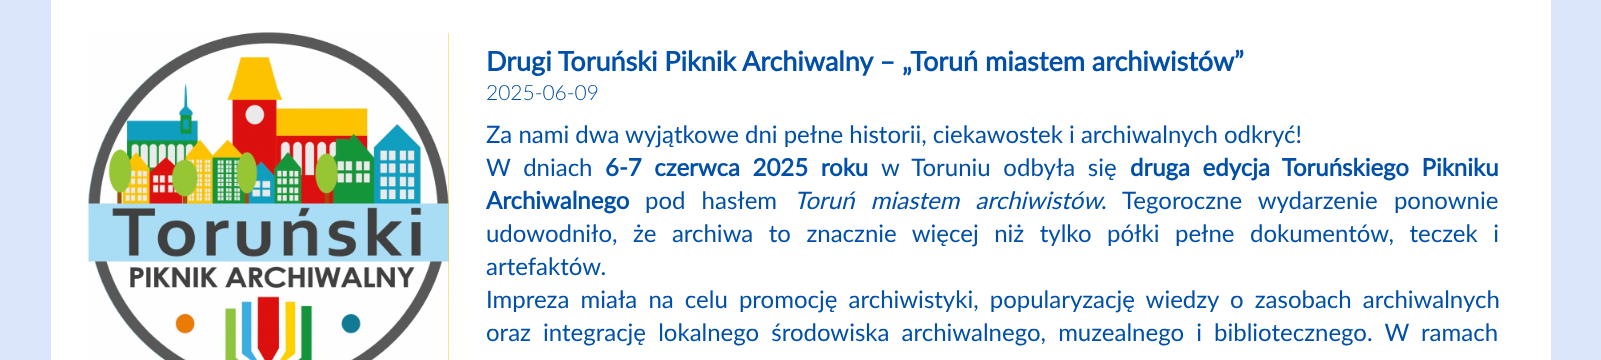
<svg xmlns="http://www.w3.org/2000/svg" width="1601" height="360">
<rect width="100%" height="100%" fill="#dce6fa"/>
<rect x="51" width="1500" height="360" fill="#fff"/>
<rect x="448" y="33" width="1" height="327" fill="#ffcd00"/>
<image x="88" y="32" width="361" height="328" href="media/1.png"/>
<text x="486" y="71" style="font-family:Lato;font-size:27px;font-weight:bold;fill:#0050aa">Drugi Toruński Piknik Archiwalny – „Toruń miastem archiwistów”</text>
<text x="486" y="100" style="font-family:Lato;font-size:21px;font-weight:300;fill:#0050aa">2025-06-09</text>
<text x="486" y="143" style="font-family:Lato;font-size:24px;fill:#0050aa">Za nami dwa wyjątkowe dni pełne historii, ciekawostek i archiwalnych odkryć!</text>
<text x="486" y="176" word-spacing="6.5" style="font-family:Lato;font-size:24px;fill:#0050aa">W dniach</text>
<text x="605" y="176" word-spacing="6.5" style="font-family:Lato;font-size:24px;font-weight:bold;fill:#0050aa">6-7 czerwca 2025 roku</text>
<text x="881" y="176" word-spacing="6.5" style="font-family:Lato;font-size:24px;fill:#0050aa">w Toruniu odbyła się</text>
<text x="1130" y="176" word-spacing="6.5" style="font-family:Lato;font-size:24px;font-weight:bold;fill:#0050aa">druga edycja Toruńskiego Pikniku</text>
<text x="486" y="209" style="font-family:Lato;font-size:24px;font-weight:bold;fill:#0050aa">Archiwalnego</text>
<text x="645" y="209" word-spacing="10" style="font-family:Lato;font-size:24px;fill:#0050aa">pod hasłem</text>
<text x="794" y="209" word-spacing="10" style="font-family:Lato;font-size:24px;font-style:italic;fill:#0050aa">Toruń miastem archiwistów</text>
<text x="1101" y="209" word-spacing="10" style="font-family:Lato;font-size:24px;fill:#0050aa">. Tegoroczne wydarzenie ponownie</text>
<text x="486" y="242" word-spacing="9.4" style="font-family:Lato;font-size:24px;fill:#0050aa">udowodniło, że archiwa to znacznie więcej niż tylko półki pełne dokumentów, teczek i</text>
<text x="486" y="275" style="font-family:Lato;font-size:24px;fill:#0050aa">artefaktów.</text>
<text x="486" y="308" word-spacing="5" style="font-family:Lato;font-size:24px;fill:#0050aa">Impreza miała na celu promocję archiwistyki, popularyzację wiedzy o zasobach archiwalnych</text>
<text x="486" y="341" word-spacing="6" style="font-family:Lato;font-size:24px;fill:#0050aa">oraz integrację lokalnego środowiska archiwalnego, muzealnego i bibliotecznego. W ramach</text>
</svg>
